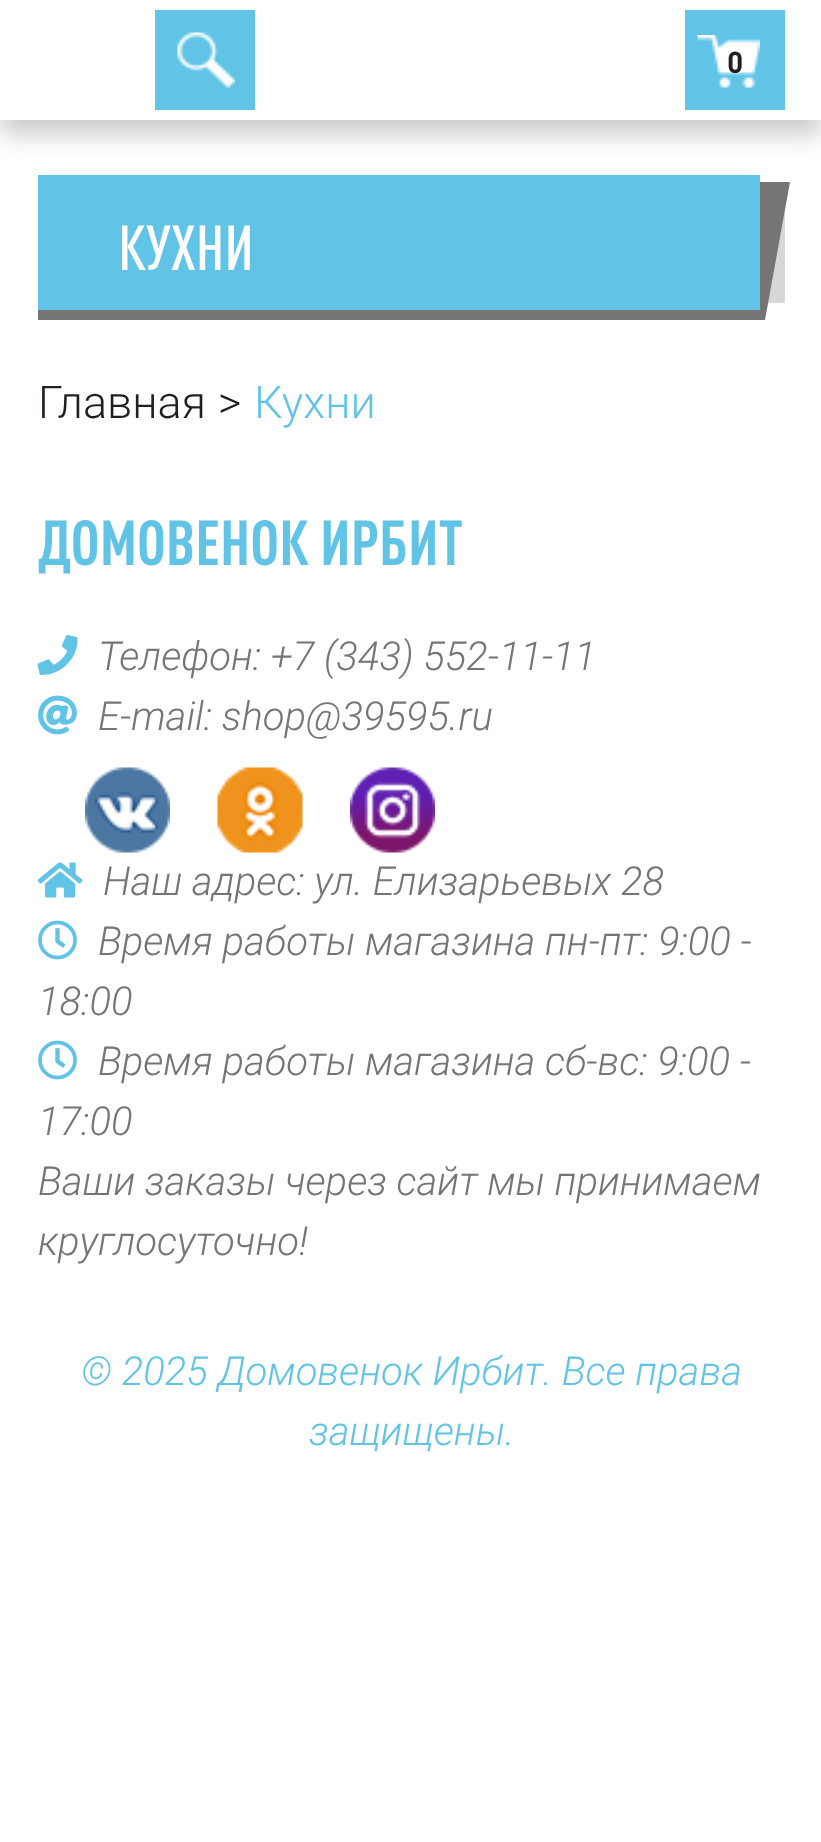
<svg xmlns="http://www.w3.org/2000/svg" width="821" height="1842">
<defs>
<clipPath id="clip1"><rect x="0" y="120" width="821" height="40"/></clipPath>
</defs>
<rect width="100%" height="100%" fill="#fff"/>
<g clip-path="url(#clip1)">
<rect y="15" width="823" height="120" fill="#c6c6c6e6" filter="blur(12.5px)"/>
</g>
<rect x="155" y="10" width="100" height="100" fill="#61c4e6"/>
<image x="177" y="32" width="58" height="56" href="media/1.png"/>
<rect x="685" y="10" width="100" height="100" fill="#61c4e6"/>
<image x="697" y="35" width="63" height="53" href="media/2.png"/>
<text x="727" y="73" style="font-family:'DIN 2';font-size:30px;font-weight:bold;fill:#231f20">0</text>
<rect x="768" y="209" width="17" height="94" fill="#d7d7d7"/>
<path d="M38 182h752l-25 138h-727z" fill="#757575"/>
<rect x="38" y="175" width="722" height="135" fill="#61c4e6"/>
<text x="118" y="270" style="font-family:DIN;font-size:62.5px;font-weight:500;fill:#fefefe">КУХНИ</text>
<text x="38" y="418" style="font-family:Roboto;font-size:45px;font-weight:300;fill:#231f20">Главная</text>
<text x="218" y="418" style="font-family:Roboto;font-size:45px;font-weight:300;fill:#231f20">&gt;</text>
<text x="254" y="418" style="font-family:Roboto;font-size:45px;font-weight:300;fill:#61c4e6">Кухни</text>
<text x="38" y="565" style="font-family:DIN;font-size:62.5px;font-weight:bold;fill:#61c4e6">ДОМОВЕНОК ИРБИТ</text>
<image x="37" y="635" width="41" height="40" href="media/3.png"/>
<text x="98" y="670" style="font-family:Roboto;font-size:40px;font-weight:300;font-style:italic;fill:#757575">Телефон: +7 (343) 552-11-11</text>
<image x="38" y="695" width="39" height="40" href="media/4.png"/>
<text x="98" y="730" style="font-family:Roboto;font-size:40px;font-weight:300;font-style:italic;fill:#757575">E-mail: shop@39595.ru</text>
<image x="85" y="767" width="85" height="86" href="media/5.png"/>
<image x="217" y="767" width="86" height="86" href="media/6.png"/>
<image x="350" y="767" width="85" height="86" href="media/7.png"/>
<image x="37" y="862" width="46" height="36" href="media/8.png"/>
<text x="103" y="895" style="font-family:Roboto;font-size:40px;font-weight:300;font-style:italic;fill:#757575">Наш адрес: ул. Елизарьевых 28</text>
<image x="38" y="920" width="39" height="40" href="media/9.png"/>
<text x="98" y="955" style="font-family:Roboto;font-size:40px;font-weight:300;font-style:italic;fill:#757575">Время работы магазина пн-пт: 9:00 -</text>
<text x="38" y="1015" style="font-family:Roboto;font-size:40px;font-weight:300;font-style:italic;fill:#757575">18:00</text>
<image x="38" y="1040" width="39" height="40" href="media/9.png"/>
<text x="98" y="1075" style="font-family:Roboto;font-size:40px;font-weight:300;font-style:italic;fill:#757575">Время работы магазина сб-вс: 9:00 -</text>
<text x="38" y="1135" style="font-family:Roboto;font-size:40px;font-weight:300;font-style:italic;fill:#757575">17:00</text>
<text x="38" y="1195" style="font-family:Roboto;font-size:40px;font-weight:300;font-style:italic;fill:#757575">Ваши заказы через сайт мы принимаем</text>
<text x="38" y="1255" style="font-family:Roboto;font-size:40px;font-weight:300;font-style:italic;fill:#757575">круглосуточно!</text>
<text x="81" y="1385" style="font-family:Roboto;font-size:40px;font-weight:300;font-style:italic;fill:#61c4e6">© 2025 Домовенок Ирбит. Все права</text>
<text x="309" y="1445" style="font-family:Roboto;font-size:40px;font-weight:300;font-style:italic;fill:#61c4e6">защищены.</text>
</svg>
